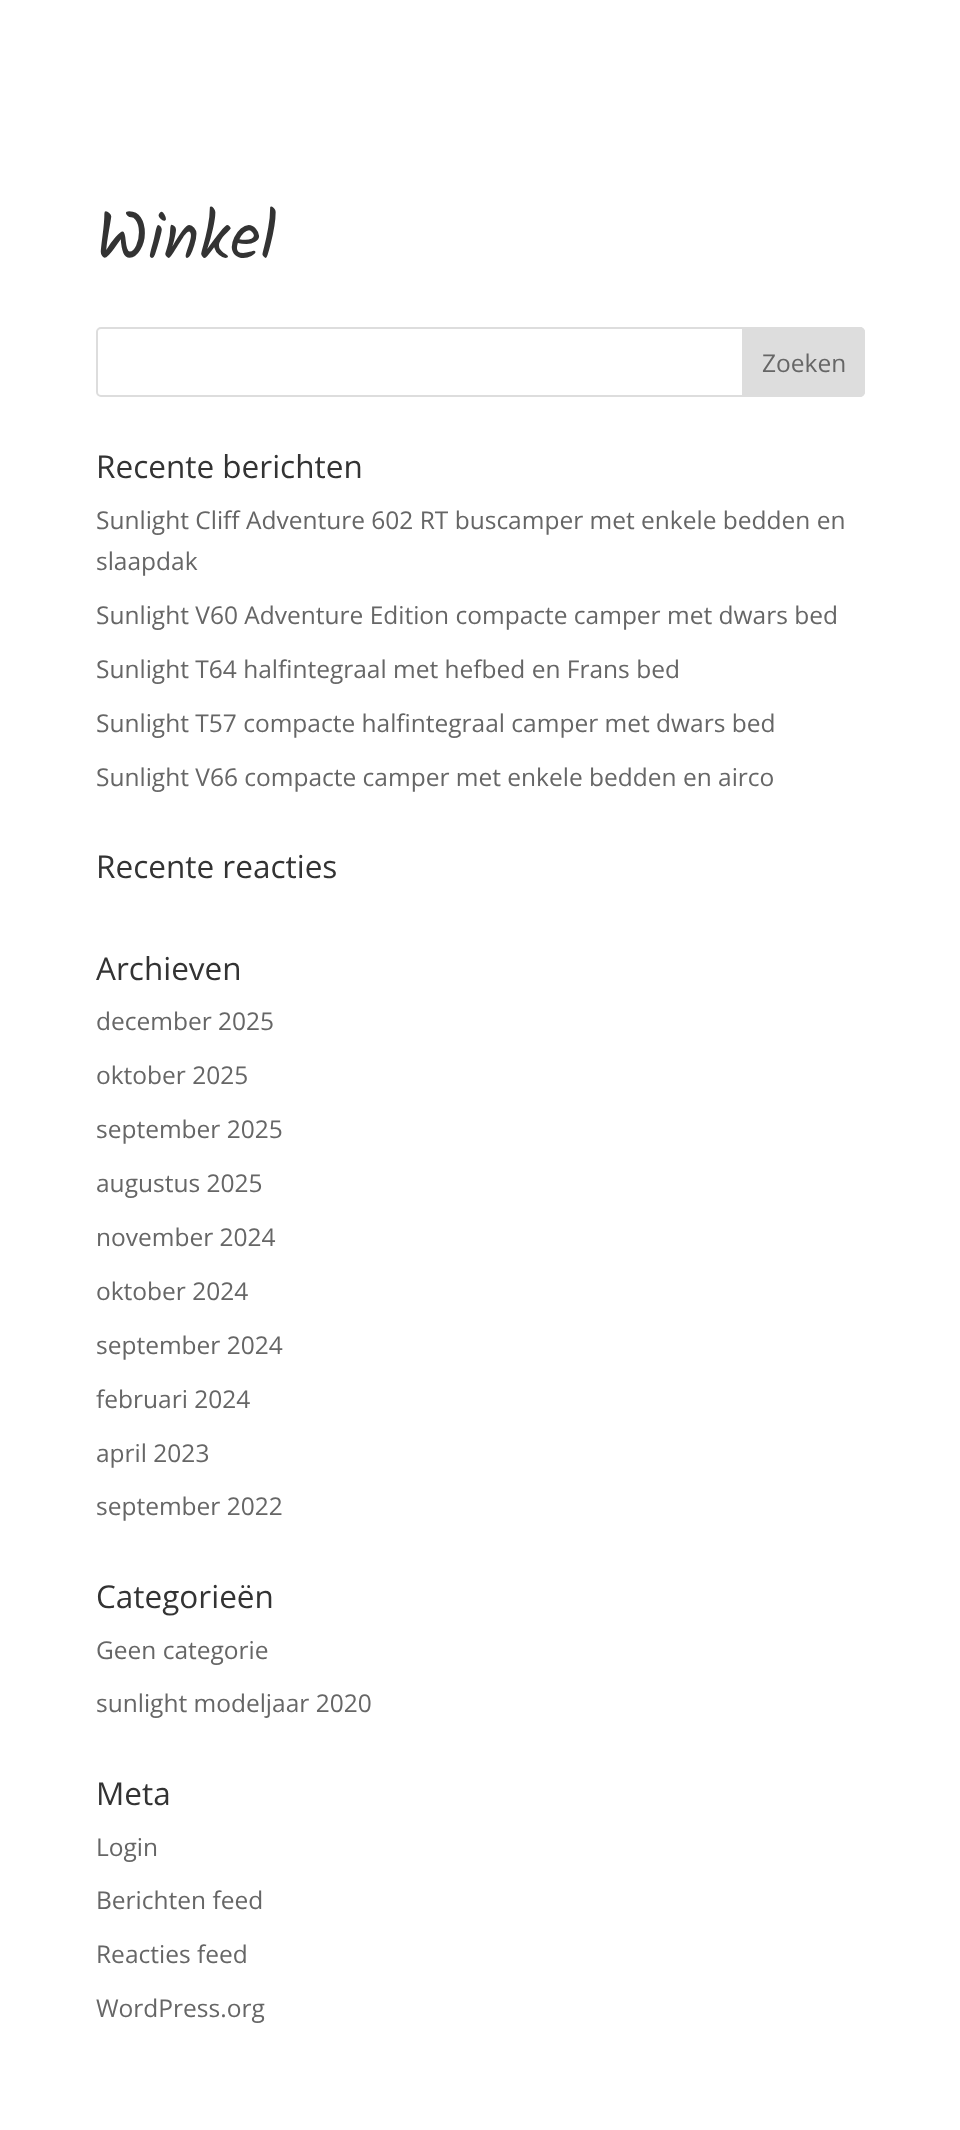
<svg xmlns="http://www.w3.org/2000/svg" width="960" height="2130">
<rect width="100%" height="100%" fill="#fff"/>
<text x="96" y="259" style="font-family:Kalam;font-size:66.5px;fill:#333">Winkel</text>
<rect x="97" y="328" width="767" height="68" rx="4" fill="none" stroke="#ddd" stroke-width="2"/>
<path d="M743 328h117c2 0 4 2 4 4v60c0 2-2 4-4 4h-117z" fill="#ddd" stroke="#ddd" stroke-width="2"/>
<text x="762" y="372" style="font-family:Open Sans;font-size:24.5px;fill:#666">Zoeken</text>
<text x="96" y="478" style="font-family:Open Sans;font-size:31.5px;fill:#333">Recente berichten</text>
<text x="96" y="529" style="font-family:Open Sans;font-size:24.5px;fill:#666">Sunlight Cliff Adventure 602 RT buscamper met enkele bedden en</text>
<text x="96" y="570" style="font-family:Open Sans;font-size:24.5px;fill:#666">slaapdak</text>
<text x="96" y="624" style="font-family:Open Sans;font-size:24.5px;fill:#666">Sunlight V60 Adventure Edition compacte camper met dwars bed</text>
<text x="96" y="678" style="font-family:Open Sans;font-size:24.5px;fill:#666">Sunlight T64 halfintegraal met hefbed en Frans bed</text>
<text x="96" y="732" style="font-family:Open Sans;font-size:24.5px;fill:#666">Sunlight T57 compacte halfintegraal camper met dwars bed</text>
<text x="96" y="786" style="font-family:Open Sans;font-size:24.5px;fill:#666">Sunlight V66 compacte camper met enkele bedden en airco</text>
<text x="96" y="878" style="font-family:Open Sans;font-size:31.5px;fill:#333">Recente reacties</text>
<text x="96" y="980" style="font-family:Open Sans;font-size:31.5px;fill:#333">Archieven</text>
<text x="96" y="1030" style="font-family:Open Sans;font-size:24.5px;fill:#666">december 2025</text>
<text x="96" y="1084" style="font-family:Open Sans;font-size:24.5px;fill:#666">oktober 2025</text>
<text x="96" y="1138" style="font-family:Open Sans;font-size:24.5px;fill:#666">september 2025</text>
<text x="96" y="1192" style="font-family:Open Sans;font-size:24.5px;fill:#666">augustus 2025</text>
<text x="96" y="1246" style="font-family:Open Sans;font-size:24.5px;fill:#666">november 2024</text>
<text x="96" y="1300" style="font-family:Open Sans;font-size:24.5px;fill:#666">oktober 2024</text>
<text x="96" y="1354" style="font-family:Open Sans;font-size:24.5px;fill:#666">september 2024</text>
<text x="96" y="1408" style="font-family:Open Sans;font-size:24.5px;fill:#666">februari 2024</text>
<text x="96" y="1462" style="font-family:Open Sans;font-size:24.5px;fill:#666">april 2023</text>
<text x="96" y="1515" style="font-family:Open Sans;font-size:24.5px;fill:#666">september 2022</text>
<text x="96" y="1608" style="font-family:Open Sans;font-size:31.5px;fill:#333">Categorieën</text>
<text x="96" y="1659" style="font-family:Open Sans;font-size:24.5px;fill:#666">Geen categorie</text>
<text x="96" y="1712" style="font-family:Open Sans;font-size:24.5px;fill:#666">sunlight modeljaar 2020</text>
<text x="96" y="1805" style="font-family:Open Sans;font-size:31.5px;fill:#333">Meta</text>
<text x="96" y="1856" style="font-family:Open Sans;font-size:24.5px;fill:#666">Login</text>
<text x="96" y="1909" style="font-family:Open Sans;font-size:24.5px;fill:#666">Berichten feed</text>
<text x="96" y="1963" style="font-family:Open Sans;font-size:24.5px;fill:#666">Reacties feed</text>
<text x="96" y="2017" style="font-family:Open Sans;font-size:24.5px;fill:#666">WordPress.org</text>
</svg>
